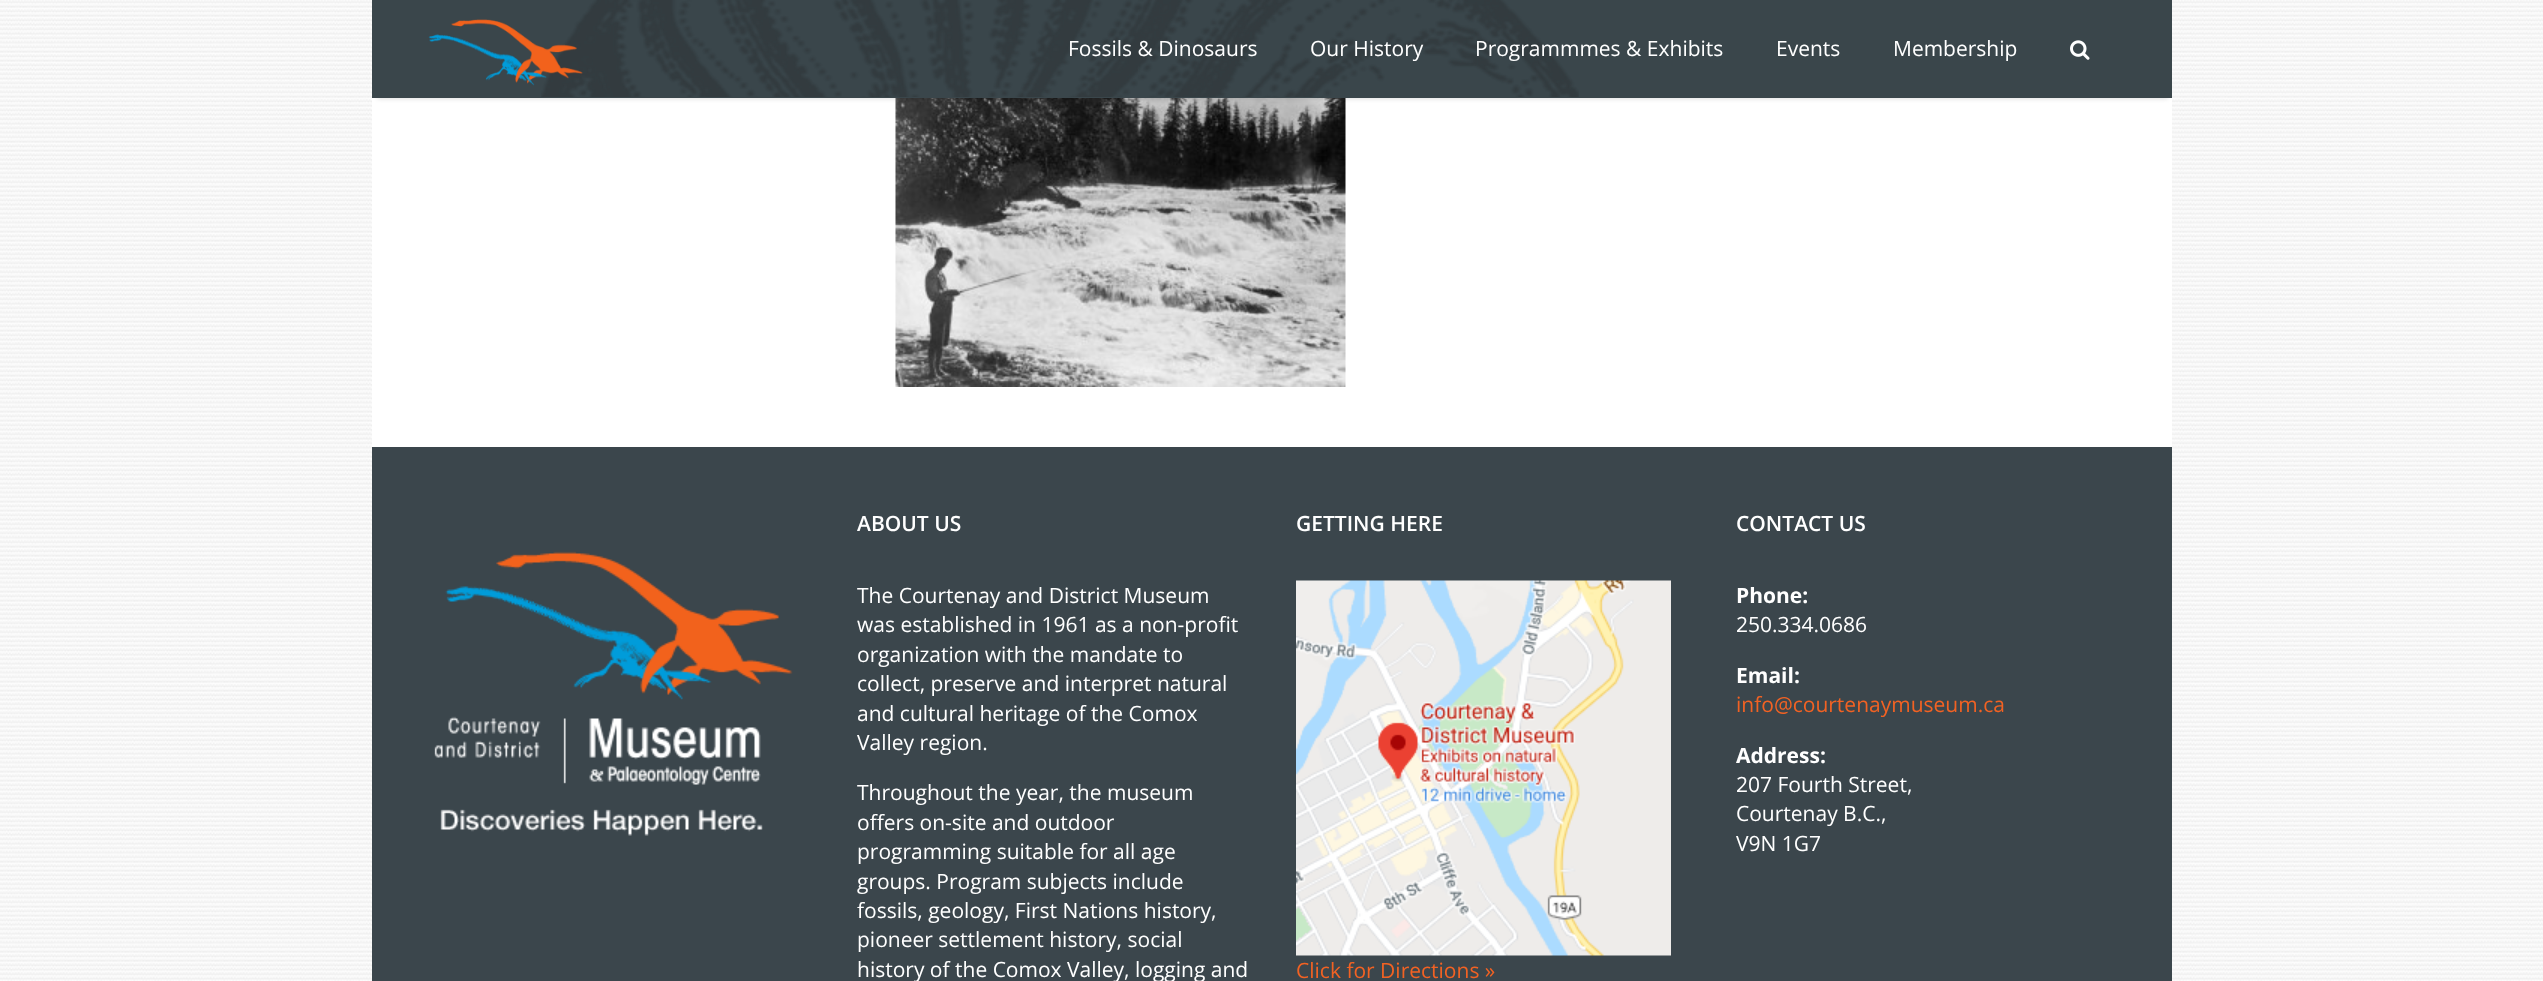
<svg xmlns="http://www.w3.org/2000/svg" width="2543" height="981">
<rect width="100%" height="100%" fill="#fff"/>
<image x="0" y="0" width="2543" height="981" href="media/1.png"/>
<rect x="372" y="98" width="1800" height="349" fill="#fff"/>
<image x="895" y="98" width="451" height="289" href="media/5.png"/>
<rect x="377" y="11" width="1791" height="88" fill="#0000001f" filter="blur(2px)"/>
<rect x="372" width="1800" height="98" fill="#3a464b"/>
<image x="541" y="0" width="1038" height="97" href="media/2.png"/>
<image x="428" y="19" width="155" height="67" href="media/3.png"/>
<text x="1068" y="56" style="font-family:Open Sans;font-size:21px;fill:#fff">Fossils &amp; Dinosaurs</text>
<text x="1310" y="56" style="font-family:Open Sans;font-size:21px;fill:#fff">Our History</text>
<text x="1475" y="56" style="font-family:Open Sans;font-size:21px;fill:#fff">Programmmes &amp; Exhibits</text>
<text x="1776" y="56" style="font-family:Open Sans;font-size:21px;fill:#fff">Events</text>
<text x="1893" y="56" style="font-family:Open Sans;font-size:21px;fill:#fff">Membership</text>
<image x="2070" y="40" width="20" height="20" href="media/4.png"/>
<rect x="372" y="447" width="1800" height="534" fill="#3b464c"/>
<image x="434" y="551" width="359" height="285" href="media/6.png"/>
<text x="857" y="531" style="font-family:Open Sans;font-size:21px;font-weight:600;fill:#fff">ABOUT US</text>
<text x="857" y="603" style="font-family:Open Sans;font-size:21px;fill:#fff">The Courtenay and District Museum</text>
<text x="857" y="632" style="font-family:Open Sans;font-size:21px;fill:#fff">was established in 1961 as a non-profit</text>
<text x="857" y="662" style="font-family:Open Sans;font-size:21px;fill:#fff">organization with the mandate to</text>
<text x="857" y="691" style="font-family:Open Sans;font-size:21px;fill:#fff">collect, preserve and interpret natural</text>
<text x="857" y="721" style="font-family:Open Sans;font-size:21px;fill:#fff">and cultural heritage of the Comox</text>
<text x="857" y="750" style="font-family:Open Sans;font-size:21px;fill:#fff">Valley region.</text>
<text x="857" y="800" style="font-family:Open Sans;font-size:21px;fill:#fff">Throughout the year, the museum</text>
<text x="857" y="830" style="font-family:Open Sans;font-size:21px;fill:#fff">offers on-site and outdoor</text>
<text x="857" y="859" style="font-family:Open Sans;font-size:21px;fill:#fff">programming suitable for all age</text>
<text x="857" y="889" style="font-family:Open Sans;font-size:21px;fill:#fff">groups. Program subjects include</text>
<text x="857" y="918" style="font-family:Open Sans;font-size:21px;fill:#fff">fossils, geology, First Nations history,</text>
<text x="857" y="947" style="font-family:Open Sans;font-size:21px;fill:#fff">pioneer settlement history, social</text>
<text x="857" y="977" style="font-family:Open Sans;font-size:21px;fill:#fff">history of the Comox Valley, logging and</text>
<text x="1296" y="531" style="font-family:Open Sans;font-size:21px;font-weight:600;fill:#fff">GETTING HERE</text>
<image x="1296" y="580" width="375" height="376" href="media/7.png"/>
<text x="1296" y="978" style="font-family:Open Sans;font-size:21px;fill:#f26223">Click for Directions »</text>
<text x="1736" y="531" style="font-family:Open Sans;font-size:21px;font-weight:600;fill:#fff">CONTACT US</text>
<text x="1736" y="603" style="font-family:Open Sans;font-size:21px;font-weight:bold;fill:#fff">Phone:</text>
<text x="1736" y="632" style="font-family:Open Sans;font-size:21px;fill:#fff">250.334.0686</text>
<text x="1736" y="683" style="font-family:Open Sans;font-size:21px;font-weight:bold;fill:#fff">Email:</text>
<text x="1736" y="712" style="font-family:Open Sans;font-size:21px;fill:#f26223">info@courtenaymuseum.ca</text>
<text x="1736" y="763" style="font-family:Open Sans;font-size:21px;font-weight:bold;fill:#fff">Address:</text>
<text x="1736" y="792" style="font-family:Open Sans;font-size:21px;fill:#fff">207 Fourth Street,</text>
<text x="1736" y="821" style="font-family:Open Sans;font-size:21px;fill:#fff">Courtenay B.C.,</text>
<text x="1736" y="851" style="font-family:Open Sans;font-size:21px;fill:#fff">V9N 1G7</text>
</svg>
